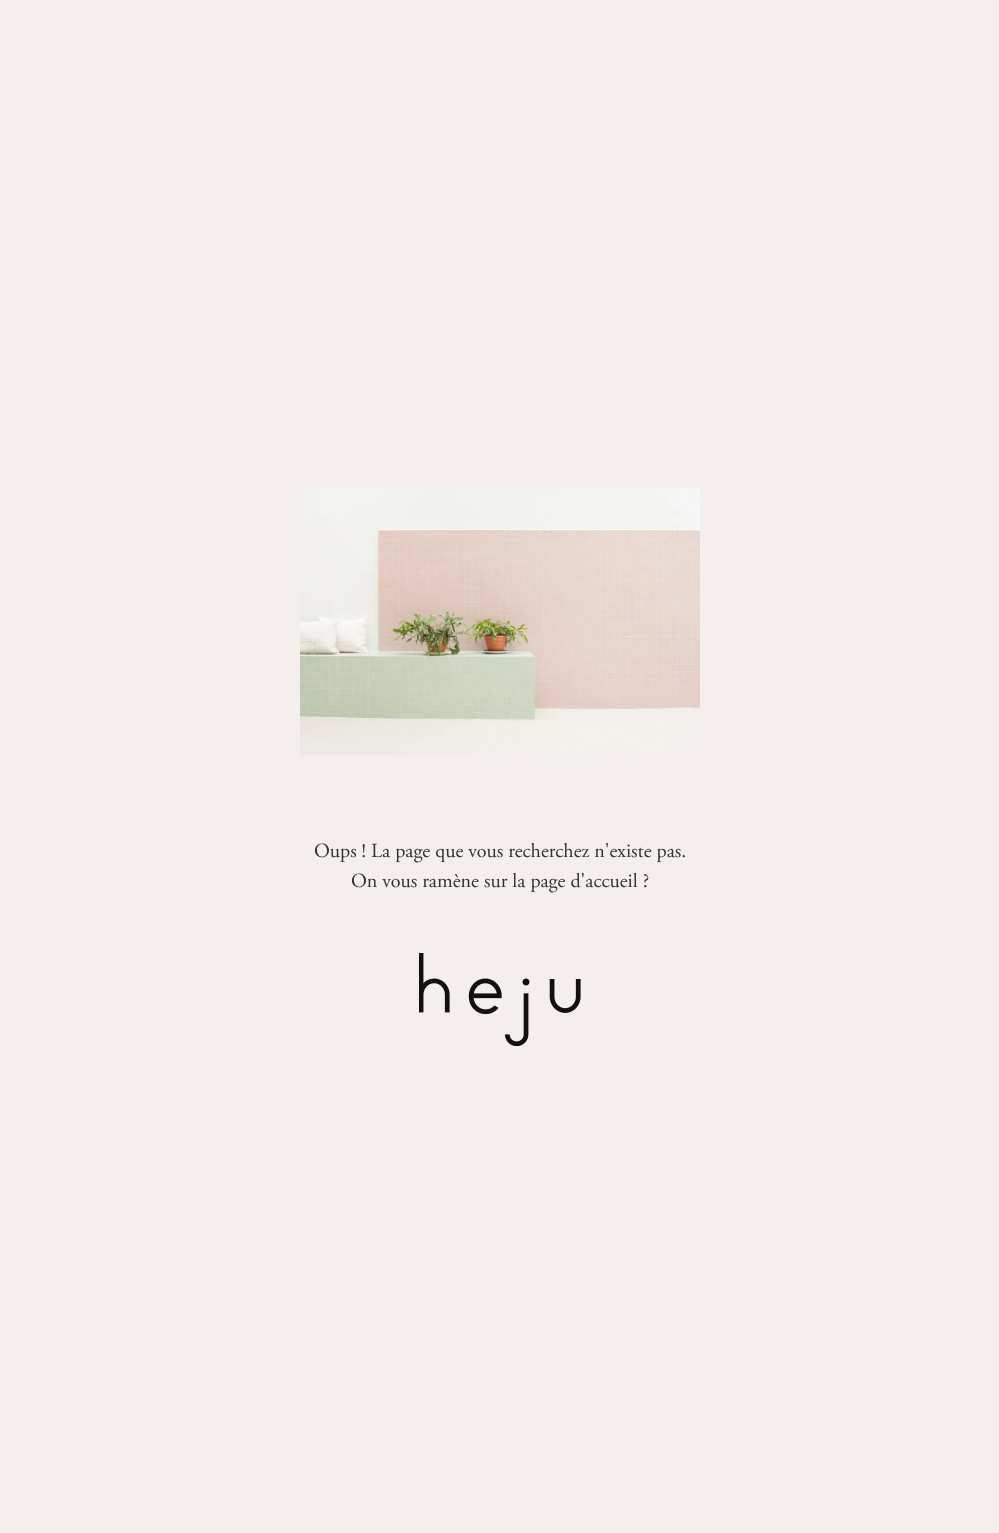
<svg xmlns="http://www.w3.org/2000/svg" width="999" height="1533">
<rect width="100%" height="100%" fill="#f4efec"/>
<image x="300" y="487" width="400" height="268" href="media/1.png"/>
<text x="314" y="857" style="font-family:Adobe Garamond;font-size:20px;fill:#333">Oups ! La page que vous recherchez n'existe pas.</text>
<text x="351" y="887" style="font-family:Adobe Garamond;font-size:20px;fill:#333">On vous ramène sur la page d'accueil ?</text>
<image x="419" y="953" width="162" height="93" href="media/2.png"/>
</svg>
